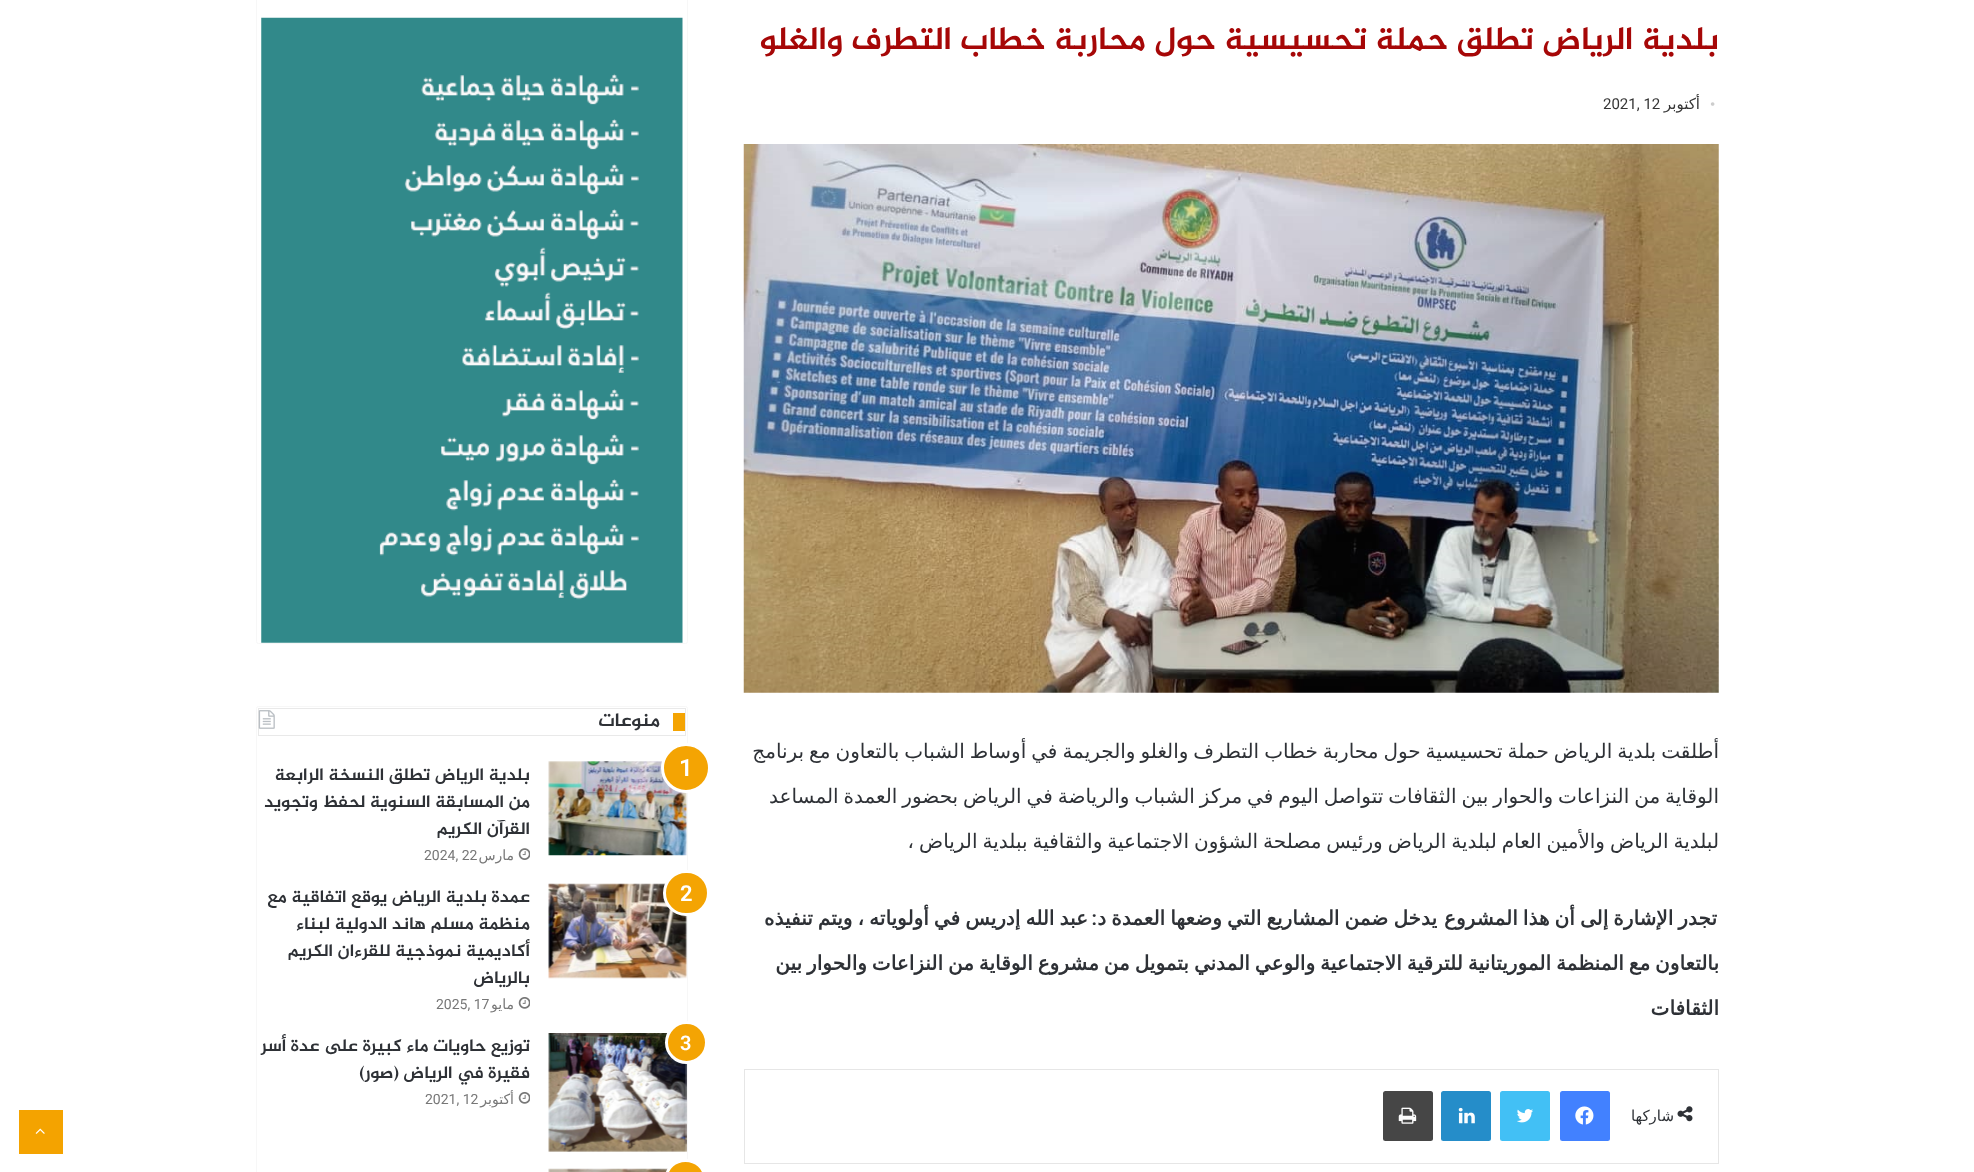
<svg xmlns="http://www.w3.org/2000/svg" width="1974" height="1172">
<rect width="100%" height="100%" fill="#fff"/>
<text x="1719" y="49" style="font-family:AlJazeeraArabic;font-size:32.5px;font-weight:bold;direction:rtl;fill:#a60707">بلدية الرياض تطلق حملة تحسيسية حول محاربة خطاب التطرف والغلو</text>
<text x="1710" y="109" style="font-family:Liberation Serif;font-size:15px;fill:#cdcdcd">•</text>
<text x="1700" y="109" style="font-family:DejaVu Sans;font-size:15px;direction:rtl;fill:#353535">أكتوبر</text>
<text x="1603" y="109" style="font-family:Roboto;font-size:15px;fill:#353535">2021, 12</text>
<image x="743" y="144" width="976" height="549" href="media/1.png"/>
<text x="1719" y="758" word-spacing="-1.4" style="font-family:DejaVu Sans;font-size:20px;direction:rtl;fill:#2e3136">أطلقت بلدية الرياض حملة تحسيسية حول محاربة خطاب التطرف والغلو والجريمة في أوساط الشباب بالتعاون مع برنامج</text>
<text x="1719" y="803" word-spacing="-1.4" style="font-family:DejaVu Sans;font-size:20px;direction:rtl;fill:#2e3136">الوقاية من النزاعات والحوار بين الثقافات تتواصل اليوم في مركز الشباب والرياضة في الرياض بحضور العمدة المساعد</text>
<text x="1719" y="848" word-spacing="-1.4" style="font-family:DejaVu Sans;font-size:20px;direction:rtl;fill:#2e3136">لبلدية الرياض والأمين العام لبلدية الرياض ورئيس مصلحة الشؤون الاجتماعية والثقافية ببلدية الرياض ،</text>
<text x="1717" y="925" word-spacing="-1.25" style="font-family:DejaVu Sans;font-size:20px;font-weight:bold;direction:rtl;fill:#2e3136">تجدر الإشارة إلى أن هذا المشروع</text>
<text x="1437" y="925" word-spacing="-1.25" style="font-family:DejaVu Sans;font-size:20px;font-weight:bold;direction:rtl;fill:#2e3136">يدخل ضمن المشاريع التي وضعها العمدة د</text>
<text x="1088" y="925" word-spacing="-1.25" style="font-family:DejaVu Sans;font-size:20px;font-weight:bold;direction:rtl;fill:#2e3136">عبد الله إدريس في أولوياته ، ويتم تنفيذه</text>
<text x="1097" y="925" style="font-family:Roboto;font-size:20px;font-weight:600;direction:rtl;fill:#2e3136">:</text>
<text x="1719" y="970" word-spacing="-1.4" style="font-family:DejaVu Sans;font-size:20px;font-weight:bold;direction:rtl;fill:#2e3136">بالتعاون مع المنظمة الموريتانية للترقية الاجتماعية والوعي المدني بتمويل من مشروع الوقاية من النزاعات والحوار بين</text>
<text x="1719" y="1015" style="font-family:DejaVu Sans;font-size:20px;font-weight:bold;direction:rtl;fill:#2e3136">الثقافات</text>
<rect x="744.5" y="1069.5" width="974" height="94" fill="none" stroke="#e6e6e6"/>
<image x="1677" y="1106" width="16" height="16" href="media/2.png"/>
<text x="1674" y="1121" style="font-family:DejaVu Sans;font-size:15px;direction:rtl;fill:#2e3136">شاركها</text>
<rect x="1560" y="1091" width="50" height="50" rx="2.5" fill="#4281ff"/>
<image x="1575" y="1106" width="19" height="19" href="media/3.png"/>
<rect x="1500" y="1091" width="50" height="50" rx="2.5" fill="#42c0f5"/>
<image x="1517" y="1109" width="16" height="14" href="media/4.png"/>
<rect x="1441" y="1091" width="50" height="50" rx="2.5" fill="#258dc9"/>
<image x="1458" y="1107" width="17" height="17" href="media/5.png"/>
<rect x="1383" y="1091" width="50" height="50" rx="2.5" fill="#464646"/>
<image x="1398" y="1107" width="19" height="17" href="media/6.png"/>
<rect x="256.5" y="-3.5" width="431" height="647" rx="2" fill="none" stroke="#f7f7f7"/>
<image x="261" y="17" width="422" height="626" href="media/7.png"/>
<rect x="256.5" y="706.5" width="431" height="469" rx="2" fill="none" stroke="#f7f7f7"/>
<rect x="258.5" y="708.5" width="427" height="27" fill="none" stroke="#e9e9e9"/>
<rect x="673" y="713" width="12" height="18" fill="#f4a403"/>
<text x="660" y="726" style="font-family:AlJazeeraArabic;font-size:19px;font-weight:bold;direction:rtl;fill:#2e3136">منوعات</text>
<image x="258" y="710" width="17" height="19" href="media/8.png"/>
<image x="548" y="761" width="139" height="95" href="media/9.png"/>
<circle cx="686" cy="768" r="23.5" fill="#f4a403" stroke="#fff" stroke-width="3"/>
<text x="679" y="776" style="font-family:Roboto;font-size:24px;font-weight:600;fill:#fff">1</text>
<text x="530" y="780" style="font-family:AlJazeeraArabic;font-size:17.5px;font-weight:bold;direction:rtl;fill:#2e3136">بلدية الرياض تطلق النسخة الرابعة</text>
<text x="530" y="807" style="font-family:AlJazeeraArabic;font-size:17.5px;font-weight:bold;direction:rtl;fill:#2e3136">من المسابقة السنوية لحفظ وتجويد</text>
<text x="530" y="834" style="font-family:AlJazeeraArabic;font-size:17.5px;font-weight:bold;direction:rtl;fill:#2e3136">القرآن الكريم</text>
<image x="518" y="848" width="12" height="12" href="media/10.png"/>
<text x="514" y="860" style="font-family:DejaVu Sans;font-size:14px;direction:rtl;fill:#777">مارس</text>
<text x="424" y="860" style="font-family:Roboto;font-size:14px;fill:#777">2024, 22</text>
<image x="548" y="883" width="139" height="96" href="media/11.png"/>
<rect x="664.5" y="871.5" width="44" height="43" rx="21.5" fill="#f4a403" stroke="#fff" stroke-width="3"/>
<text x="680" y="901" style="font-family:Roboto;font-size:22px;font-weight:600;fill:#fff">2</text>
<text x="530" y="902" style="font-family:AlJazeeraArabic;font-size:17.5px;font-weight:bold;direction:rtl;fill:#2e3136">عمدة بلدية الرياض يوقع اتفاقية مع</text>
<text x="530" y="929" style="font-family:AlJazeeraArabic;font-size:17.5px;font-weight:bold;direction:rtl;fill:#2e3136">منظمة مسلم هاند الدولية لبناء</text>
<text x="530" y="956" style="font-family:AlJazeeraArabic;font-size:17.5px;font-weight:bold;direction:rtl;fill:#2e3136">أكاديمية نموذجية للقرءان الكريم</text>
<text x="530" y="983" style="font-family:AlJazeeraArabic;font-size:17.5px;font-weight:bold;direction:rtl;fill:#2e3136">بالرياض</text>
<image x="518" y="997" width="12" height="12" href="media/12.png"/>
<text x="514" y="1009" style="font-family:DejaVu Sans;font-size:14px;direction:rtl;fill:#777">مايو</text>
<text x="436" y="1009" style="font-family:Roboto;font-size:14px;fill:#777">2025, 17</text>
<image x="548" y="1033" width="139" height="119" href="media/13.png"/>
<text x="530" y="1051" style="font-family:AlJazeeraArabic;font-size:17.5px;font-weight:bold;direction:rtl;fill:#2e3136">توزيع حاويات ماء كبيرة على عدة أسر</text>
<text x="530" y="1078" style="font-family:AlJazeeraArabic;font-size:17.5px;font-weight:bold;direction:rtl;fill:#2e3136">فقيرة في الرياض (صور)</text>
<image x="518" y="1092" width="12" height="12" href="media/12.png"/>
<text x="514" y="1104" style="font-family:DejaVu Sans;font-size:14px;direction:rtl;fill:#777">أكتوبر</text>
<text x="425" y="1104" style="font-family:Roboto;font-size:14px;fill:#777">2021, 12</text>
<circle cx="686.5" cy="1042.5" r="20" fill="#f4a403" stroke="#fff" stroke-width="3"/>
<text x="680" y="1050" style="font-family:Roboto;font-size:20px;font-weight:600;fill:#fff">3</text>
<image x="548" y="1168" width="121" height="4" href="media/14.png"/>
<rect x="666.5" y="1160.5" width="38" height="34" rx="19" fill="#f4a403" stroke="#fff" stroke-width="3"/>
<rect x="19" y="1110" width="44" height="44" fill="#f4a300"/>
<image x="35" y="1128" width="10" height="6" href="media/15.png"/>
</svg>
